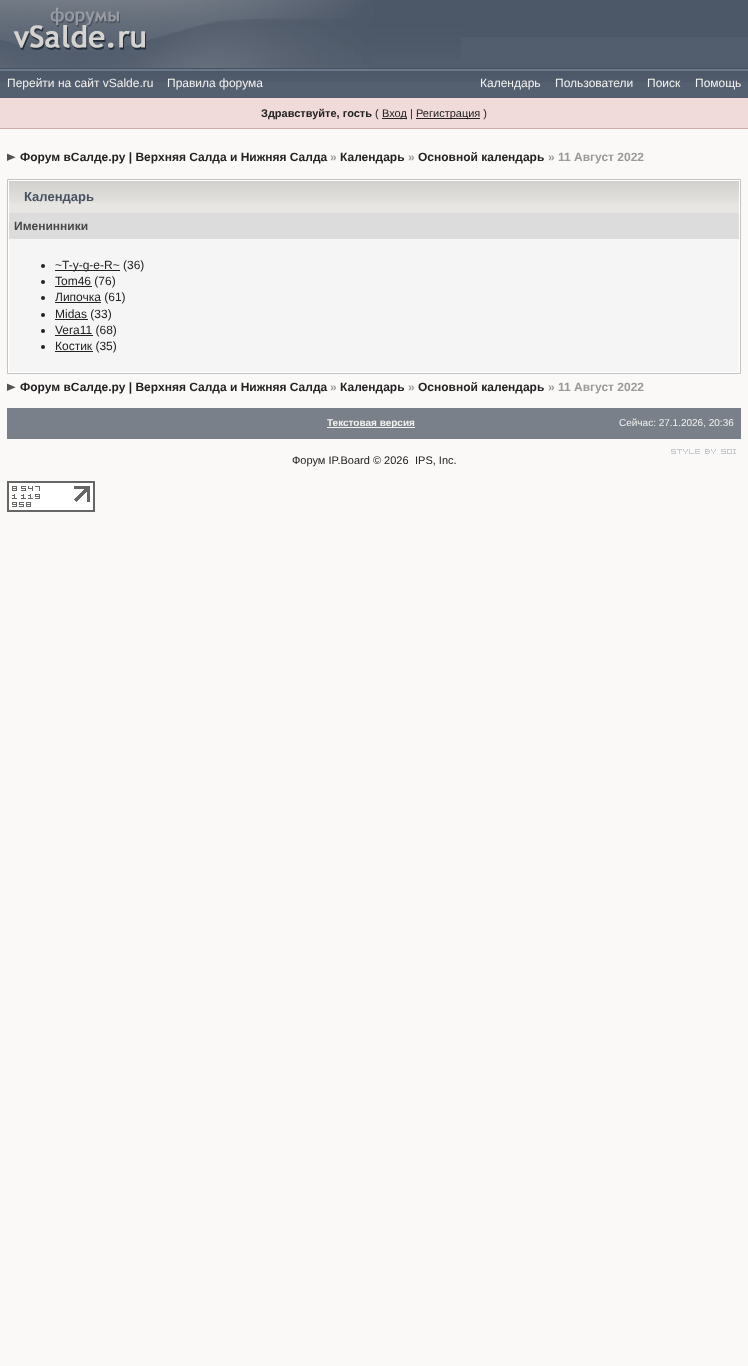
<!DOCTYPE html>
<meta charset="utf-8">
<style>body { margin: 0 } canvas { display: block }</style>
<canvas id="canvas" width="748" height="1366"></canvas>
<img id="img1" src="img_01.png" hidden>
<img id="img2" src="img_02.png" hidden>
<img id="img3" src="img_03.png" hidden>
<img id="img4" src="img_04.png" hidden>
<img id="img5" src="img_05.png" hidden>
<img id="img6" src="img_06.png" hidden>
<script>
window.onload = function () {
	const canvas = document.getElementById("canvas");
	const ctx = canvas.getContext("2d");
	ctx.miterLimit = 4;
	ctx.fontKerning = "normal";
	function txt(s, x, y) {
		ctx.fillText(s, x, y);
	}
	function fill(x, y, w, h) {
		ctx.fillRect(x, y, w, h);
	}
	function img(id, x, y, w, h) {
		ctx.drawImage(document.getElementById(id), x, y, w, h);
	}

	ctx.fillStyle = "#FBF9F8";
	fill(0, 0, 748, 1366);
	ctx.fillStyle = "#525D6D";
	fill(461, 37, 287, 31);
	ctx.fillStyle = "#4C5767";
	fill(461, 0, 287, 37);
	img("img1", 0, 0, 461, 68);
	ctx.fillStyle = "#545F6F";
	fill(0, 82, 748, 16);
	img("img2", 0, 68, 748, 14);
	ctx.fillStyle = "#F1DADA";
	fill(0, 98, 748, 30);
	ctx.fillStyle = "#D1A9A9";
	fill(0, 128, 748, 1);
	ctx.fillStyle = "#222222";
	fill(382, 118, 25, 1);
	fill(416, 118, 64, 1);
	img("img3", 7, 153, 9, 8);
	ctx.fillStyle = "#FFFFFF";
	ctx.beginPath();
	ctx.rect(7.5, 179.5, 733, 194);
	ctx.fill();
	ctx.strokeStyle = "#C4C4C4";
	ctx.stroke();
	ctx.fillStyle = "#E7E6E3";
	fill(9, 203, 730, 10);
	img("img4", 9, 181, 730, 22);
	ctx.fillStyle = "#DCDCDC";
	fill(9, 213, 730, 26);
	ctx.fillStyle = "#F5F5F5";
	fill(9, 239, 730, 133);
	ctx.fillStyle = "#222222";
	ctx.beginPath();
	ctx.arc(43, 266, 2, 0, Math.PI * 2);
	ctx.fill();
	fill(55, 270, 65, 1);
	ctx.beginPath();
	ctx.arc(43, 282, 2, 0, Math.PI * 2);
	ctx.fill();
	fill(55, 286, 37, 1);
	ctx.beginPath();
	ctx.arc(43, 298, 2, 0, Math.PI * 2);
	ctx.fill();
	fill(55, 302, 46, 1);
	ctx.beginPath();
	ctx.arc(43, 315, 2, 0, Math.PI * 2);
	ctx.fill();
	fill(55, 319, 33, 1);
	ctx.beginPath();
	ctx.arc(43, 331, 2, 0, Math.PI * 2);
	ctx.fill();
	fill(55, 335, 38, 1);
	ctx.beginPath();
	ctx.arc(43, 347, 2, 0, Math.PI * 2);
	ctx.fill();
	fill(55, 351, 38, 1);
	img("img3", 7, 383, 9, 8);
	ctx.fillStyle = "#79808A";
	fill(7, 408, 734, 31);
	ctx.fillStyle = "#F3F2EF";
	fill(327, 427, 88, 1);
	img("img5", 671, 449, 65, 5);
	img("img6", 7, 481, 88, 31);
	ctx.font = "12px Liberation Sans";
	txt("Перейти на сайт vSalde.ru", 7, 87);
	txt("Правила форума", 167, 87);
	txt("Календарь", 480, 87);
	txt("Пользователи", 555, 87);
	txt("Поиск", 647, 87);
	txt("Помощь", 695, 87);
	ctx.font = "bold 11px Liberation Sans";
	ctx.fillStyle = "#222222";
	txt("Здравствуйте, гость", 261, 117);
	ctx.font = "11px Liberation Sans";
	txt("(", 375, 117);
	txt("Вход |", 382, 117);
	txt("Регистрация )", 416, 117);
	ctx.font = "bold 12px Liberation Sans";
	txt("Форум вСалде.ру | Верхняя Салда и Нижняя Салда", 20, 161);
	ctx.fillStyle = "#999999";
	txt("»", 330, 161);
	ctx.fillStyle = "#222222";
	txt("Календарь", 340, 161);
	ctx.fillStyle = "#999999";
	txt("»", 408, 161);
	ctx.fillStyle = "#222222";
	txt("Основной календарь", 418, 161);
	ctx.fillStyle = "#999999";
	txt("» 11 Август 2022", 548, 161);
	ctx.font = "bold 13px Liberation Sans";
	ctx.fillStyle = "#475262";
	txt("Календарь", 24, 201);
	ctx.font = "bold 12px Liberation Sans";
	ctx.fillStyle = "#474747";
	txt("Именинники", 14, 230);
	ctx.font = "12px Liberation Sans";
	ctx.fillStyle = "#222222";
	txt("~T-y-g-e-R~ (36)", 55, 269);
	txt("Tom46 (76)", 55, 285);
	txt("Липочка (61)", 55, 301);
	txt("Midas (33)", 55, 318);
	txt("Vera11 (68)", 55, 334);
	txt("Костик (35)", 55, 350);
	ctx.font = "bold 12px Liberation Sans";
	txt("Форум вСалде.ру | Верхняя Салда и Нижняя Салда", 20, 391);
	ctx.fillStyle = "#999999";
	txt("»", 330, 391);
	ctx.fillStyle = "#222222";
	txt("Календарь", 340, 391);
	ctx.fillStyle = "#999999";
	txt("»", 408, 391);
	ctx.fillStyle = "#222222";
	txt("Основной календарь", 418, 391);
	ctx.fillStyle = "#999999";
	txt("» 11 Август 2022", 548, 391);
	ctx.font = "bold 10px Liberation Sans";
	ctx.fillStyle = "#F3F2EF";
	txt("Текстовая версия", 327, 426);
	ctx.font = "10px Liberation Sans";
	txt("Сейчас: 27.1.2026, 20:36", 619, 426);
	ctx.font = "11px Liberation Sans";
	ctx.fillStyle = "#222222";
	txt("Форум IP.Board © 2026", 292, 464);
	txt("IPS, Inc.", 415, 464);
};
</script>
